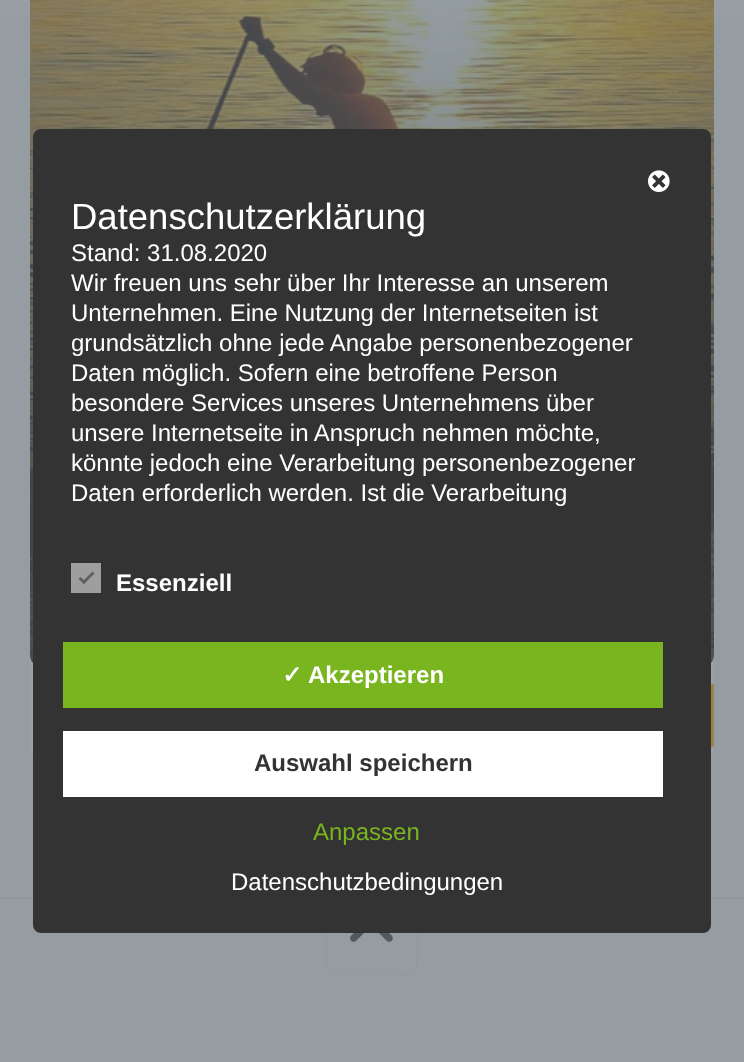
<!DOCTYPE html>
<meta charset="utf-8">
<style>body { margin: 0 } canvas { display: block }</style>
<canvas id="canvas" width="744" height="1062"></canvas>
<img id="img1" src="img_01.png" hidden>
<img id="img2" src="img_02.png" hidden>
<img id="img3" src="img_03.png" hidden>
<img id="img4" src="img_04.png" hidden>
<script>
window.onload = function () {
	const canvas = document.getElementById("canvas");
	const ctx = canvas.getContext("2d");
	ctx.miterLimit = 4;
	ctx.fontKerning = "normal";
	function txt(s, x, y) {
		ctx.fillText(s, x, y);
	}
	function fill(x, y, w, h) {
		ctx.fillRect(x, y, w, h);
	}
	function round(x, y, w, h, r) {
		ctx.beginPath();
		ctx.roundRect(x, y, w, h, r);
		ctx.fill();
	}
	function img(id, x, y, w, h) {
		ctx.drawImage(document.getElementById(id), x, y, w, h);
	}
	let gradient;

	ctx.fillStyle = "#959DA2";
	fill(0, 0, 744, 1062);
	ctx.fillStyle = "rgba(63, 70, 75, 0.06)";
	ctx.beginPath();
	ctx.moveTo(30, 747);
	ctx.lineTo(30, 749);
	ctx.bezierCurveTo(30, 757, 37, 764, 45, 764);
	ctx.lineTo(699, 764);
	ctx.bezierCurveTo(707, 764, 714, 757, 714, 749);
	ctx.lineTo(714, 747);
	ctx.bezierCurveTo(714, 755, 707, 762, 699, 762);
	ctx.lineTo(45, 762);
	ctx.bezierCurveTo(37, 762, 30, 755, 30, 747);
	ctx.closePath();
	ctx.fill();
	gradient = ctx.createLinearGradient(372, -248, 372, 203);
	gradient.addColorStop(0, "#9BA2A7");
	gradient.addColorStop(1, "#959DA2");
	ctx.fillStyle = gradient;
	fill(0, 0, 744, 15);
	ctx.fillStyle = "#9BA2A7";
	round(30, -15, 684, 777, 15);
	img("img1", 30, 0, 684, 663);
	img("img2", 30, 0, 684, 663);
	ctx.fillStyle = "#9B834B";
	fill(711, 684, 3, 63);
	ctx.fillStyle = "#91999D";
	fill(0, 897, 744, 2);
	ctx.beginPath();
	ctx.moveTo(326, 898);
	ctx.lineTo(418, 898);
	ctx.lineTo(418, 960);
	ctx.bezierCurveTo(418, 968, 412, 975, 404, 975);
	ctx.lineTo(340, 975);
	ctx.bezierCurveTo(332, 975, 326, 968, 326, 960);
	ctx.closePath();
	ctx.moveTo(327, 898);
	ctx.lineTo(417, 898);
	ctx.lineTo(417, 960);
	ctx.bezierCurveTo(417, 967, 411, 974, 404, 974);
	ctx.lineTo(340, 974);
	ctx.bezierCurveTo(333, 974, 327, 967, 327, 960);
	ctx.closePath();
	ctx.fill("evenodd");
	img("img3", 350, 933, 43, 9);
	ctx.fillStyle = "#333333";
	round(33, 129, 678, 804, 8);
	img("img4", 648, 170, 22, 22);
	ctx.fillStyle = "#9E9E9E";
	fill(71, 563, 30, 30);
	ctx.fillStyle = "#5E5E5E";
	ctx.beginPath();
	ctx.moveTo(92.5, 571.5);
	ctx.lineTo(94.5, 573.5);
	ctx.lineTo(84, 584);
	ctx.lineTo(82, 582);
	ctx.closePath();
	ctx.fill();
	ctx.beginPath();
	ctx.moveTo(80.5, 577);
	ctx.lineTo(86, 582);
	ctx.lineTo(84, 584);
	ctx.lineTo(78.5, 579);
	ctx.closePath();
	ctx.fill();
	ctx.fillStyle = "#79B51F";
	fill(63, 642, 600, 66);
	ctx.fillStyle = "#FFFFFF";
	fill(63, 731, 600, 66);
	ctx.font = "36.5px Liberation Sans";
	txt("Datenschutzerklärung", 71, 229);
	ctx.font = "24px Liberation Sans";
	txt("Stand: 31.08.2020", 71, 261);
	txt("Wir freuen uns sehr über Ihr Interesse an unserem", 71, 291);
	txt("Unternehmen. Eine Nutzung der Internetseiten ist", 71, 321);
	txt("grundsätzlich ohne jede Angabe personenbezogener", 71, 351);
	txt("Daten möglich. Sofern eine betroffene Person", 71, 381);
	txt("besondere Services unseres Unternehmens über", 71, 411);
	txt("unsere Internetseite in Anspruch nehmen möchte,", 71, 441);
	txt("könnte jedoch eine Verarbeitung personenbezogener", 71, 471);
	txt("Daten erforderlich werden. Ist die Verarbeitung", 71, 501);
	ctx.font = "bold 24px Liberation Sans";
	txt("Essenziell", 116, 591);
	ctx.font = "bold 24px DejaVu Sans";
	txt("✓", 282, 683);
	ctx.font = "bold 24px Liberation Sans";
	txt("Akzeptieren", 308, 683);
	ctx.fillStyle = "#333333";
	txt("Auswahl speichern", 254, 771);
	ctx.font = "24px Liberation Sans";
	ctx.fillStyle = "#79B51F";
	txt("Anpassen", 313, 840);
	ctx.fillStyle = "#FFFFFF";
	txt("Datenschutzbedingungen", 231, 890);
};
</script>
